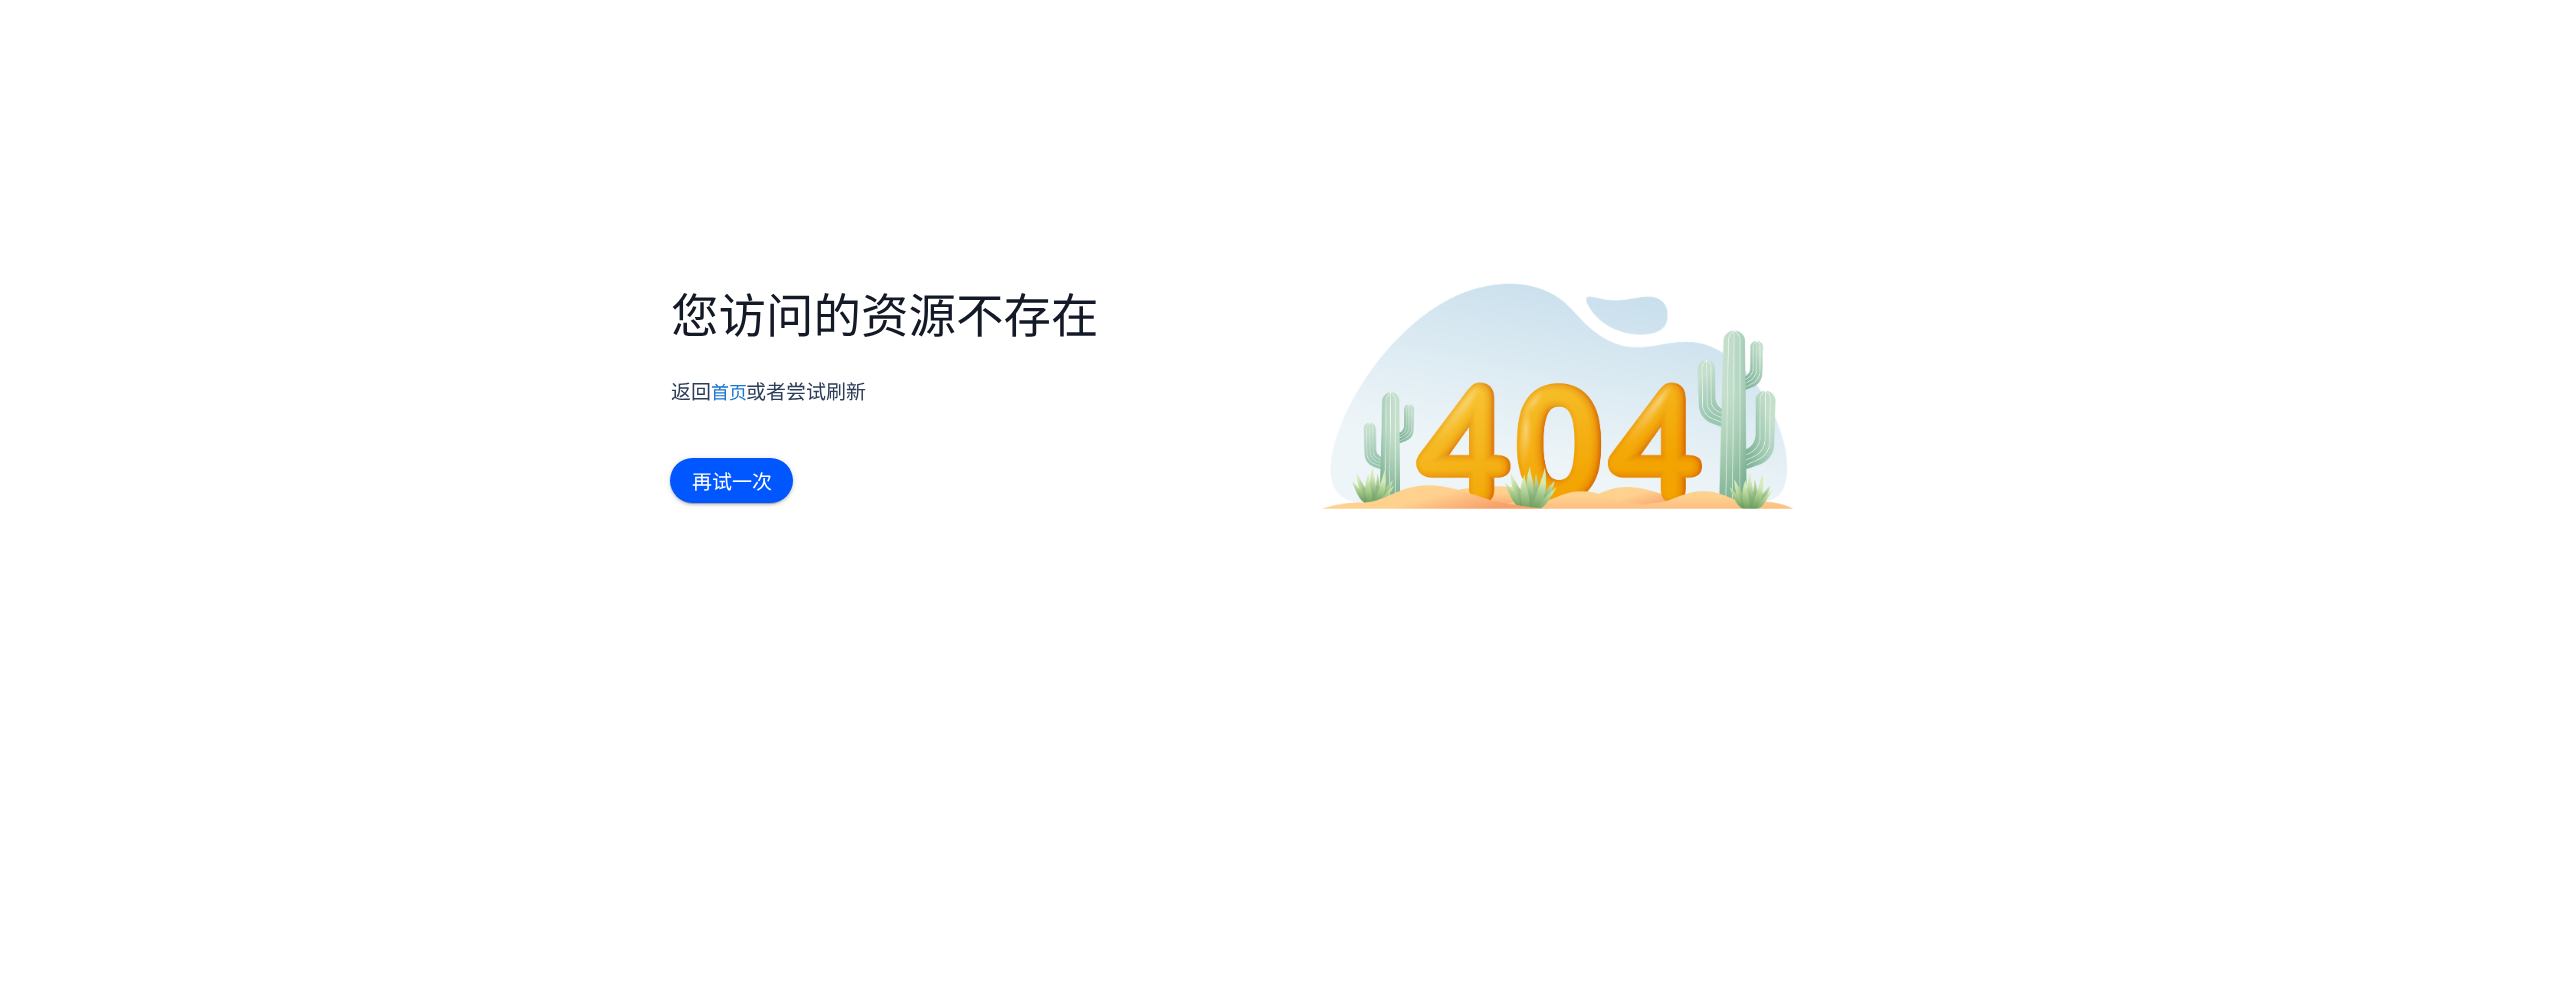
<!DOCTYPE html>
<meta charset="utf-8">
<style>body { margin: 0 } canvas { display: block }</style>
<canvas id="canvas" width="2573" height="1006"></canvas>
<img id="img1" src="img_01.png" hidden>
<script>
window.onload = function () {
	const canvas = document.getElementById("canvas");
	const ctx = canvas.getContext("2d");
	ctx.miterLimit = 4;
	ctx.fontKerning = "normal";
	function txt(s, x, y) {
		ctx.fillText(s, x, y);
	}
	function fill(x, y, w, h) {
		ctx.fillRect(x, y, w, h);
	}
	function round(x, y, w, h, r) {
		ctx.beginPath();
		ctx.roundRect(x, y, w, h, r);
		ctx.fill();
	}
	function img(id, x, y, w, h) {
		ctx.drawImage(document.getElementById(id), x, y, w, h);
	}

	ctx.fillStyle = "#FFFFFF";
	fill(0, 0, 2573, 1006);
	ctx.fillStyle = "rgba(0, 0, 0, 0.12)";
	ctx.filter = "blur(3px)";
	ctx.beginPath();
	ctx.roundRect(670, 459, 123, 45, 22.5);
	ctx.fill();
	ctx.filter = "none";
	ctx.fillStyle = "rgba(0, 0, 0, 0.14)";
	ctx.filter = "blur(1px)";
	ctx.beginPath();
	ctx.roundRect(670, 460, 123, 45, 22.5);
	ctx.fill();
	ctx.filter = "none";
	ctx.fillStyle = "rgba(0, 0, 0, 0.2)";
	ctx.filter = "blur(0.5px)";
	ctx.beginPath();
	ctx.roundRect(673, 464, 117, 40, 20);
	ctx.fill();
	ctx.filter = "none";
	ctx.fillStyle = "#0057FF";
	round(670, 458, 123, 45, 22.5);
	img("img1", 1322, 283, 472, 226);
	ctx.font = "47.5px Noto Sans CJK SC";
	ctx.fillStyle = "#131926";
	txt("您访问的资源不存在", 671, 333);
	ctx.font = "20px Noto Sans CJK SC";
	ctx.fillStyle = "#2D3C59";
	txt("返回", 671, 399);
	ctx.font = "18px Noto Sans CJK SC";
	ctx.fillStyle = "#1976D2";
	txt("首页", 711, 399);
	ctx.font = "20px Noto Sans CJK SC";
	ctx.fillStyle = "#2D3C59";
	txt("或者尝试刷新", 746, 399);
	ctx.fillStyle = "#FFFFFF";
	txt("再试一次", 692, 489);
};
</script>
